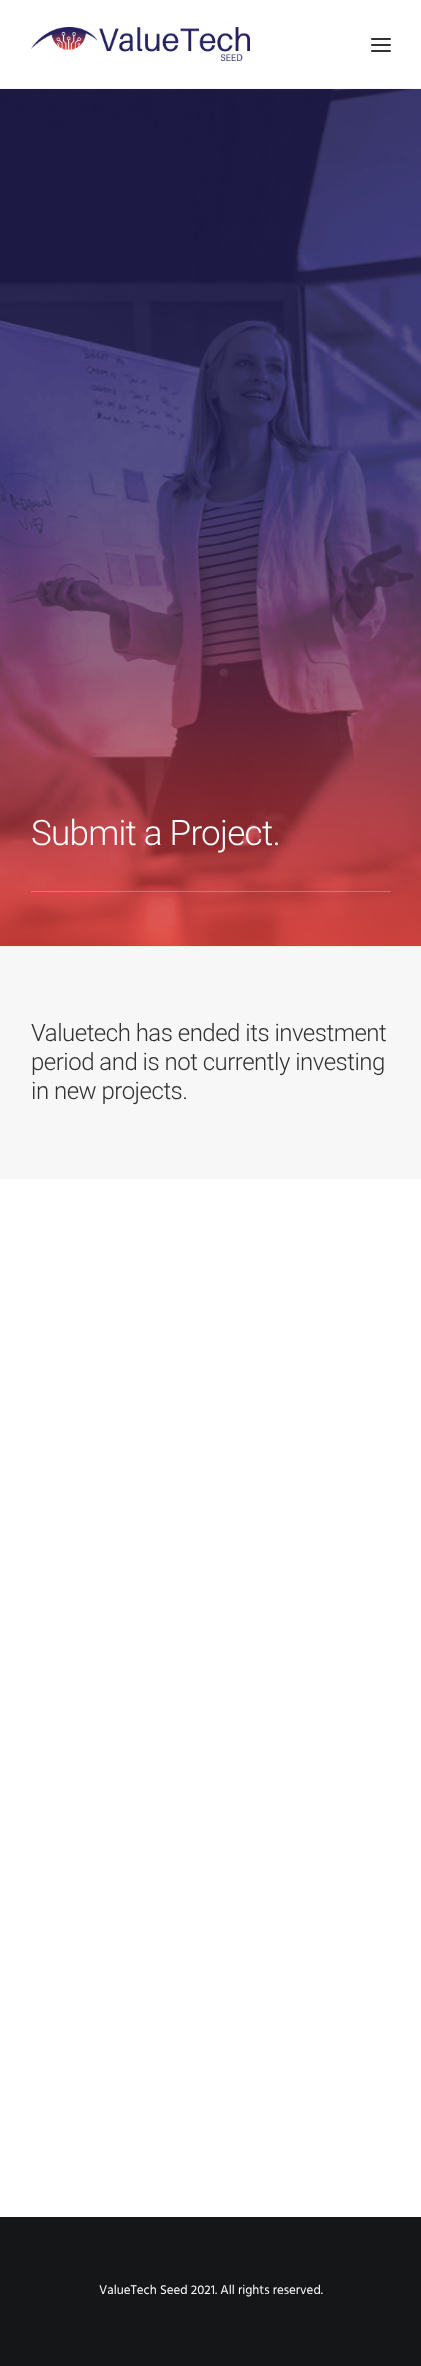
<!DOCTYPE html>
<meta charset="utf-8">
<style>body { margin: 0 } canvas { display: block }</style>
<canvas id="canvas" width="421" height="2366"></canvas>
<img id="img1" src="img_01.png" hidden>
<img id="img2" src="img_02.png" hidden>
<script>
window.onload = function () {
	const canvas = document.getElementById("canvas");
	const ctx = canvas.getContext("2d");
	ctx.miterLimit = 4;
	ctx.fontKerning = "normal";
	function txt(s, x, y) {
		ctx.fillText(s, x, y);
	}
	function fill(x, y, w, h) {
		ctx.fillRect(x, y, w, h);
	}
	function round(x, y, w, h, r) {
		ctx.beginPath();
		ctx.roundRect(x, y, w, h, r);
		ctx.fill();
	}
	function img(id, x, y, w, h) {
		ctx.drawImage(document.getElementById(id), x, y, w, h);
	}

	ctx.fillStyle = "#141618";
	fill(0, 0, 421, 2366);
	ctx.fillStyle = "#FFFFFF";
	fill(0, 0, 421, 88);
	ctx.fillStyle = "#F5F5F5";
	fill(0, 88, 421, 1);
	img("img1", 31, 27, 219, 34);
	ctx.fillStyle = "#303133";
	round(371, 44, 20, 2, 1);
	round(371, 38, 20, 2, 1);
	round(371, 50, 20, 2, 1);
	img("img2", 0, 89, 421, 857);
	ctx.fillStyle = "rgba(255, 255, 255, 0.25)";
	fill(31, 891, 360, 1);
	ctx.fillStyle = "#FFFFFF";
	fill(0, 1179, 421, 1038);
	ctx.fillStyle = "#F7F7F7";
	fill(0, 947, 421, 232);
	ctx.fillStyle = "#EAEAEA";
	fill(0, 946, 421, 1);
	ctx.letterSpacing = "-0.75px";
	ctx.font = "300 35px Roboto";
	ctx.fillStyle = "#FFFFFF";
	txt("Submit a Project.", 31, 845);
	ctx.letterSpacing = "-0.5px";
	ctx.font = "300 24px Roboto";
	ctx.fillStyle = "#303133";
	txt("Valuetech has ended its investment", 31, 1041);
	txt("period and is not currently investing", 31, 1070);
	txt("in new projects.", 31, 1099);
	ctx.letterSpacing = "0px";
	ctx.font = "13px Hind";
	ctx.fillStyle = "#FFFFFF";
	txt("ValueTech Seed 2021. All rights reserved.", 99, 2294);
};
</script>
